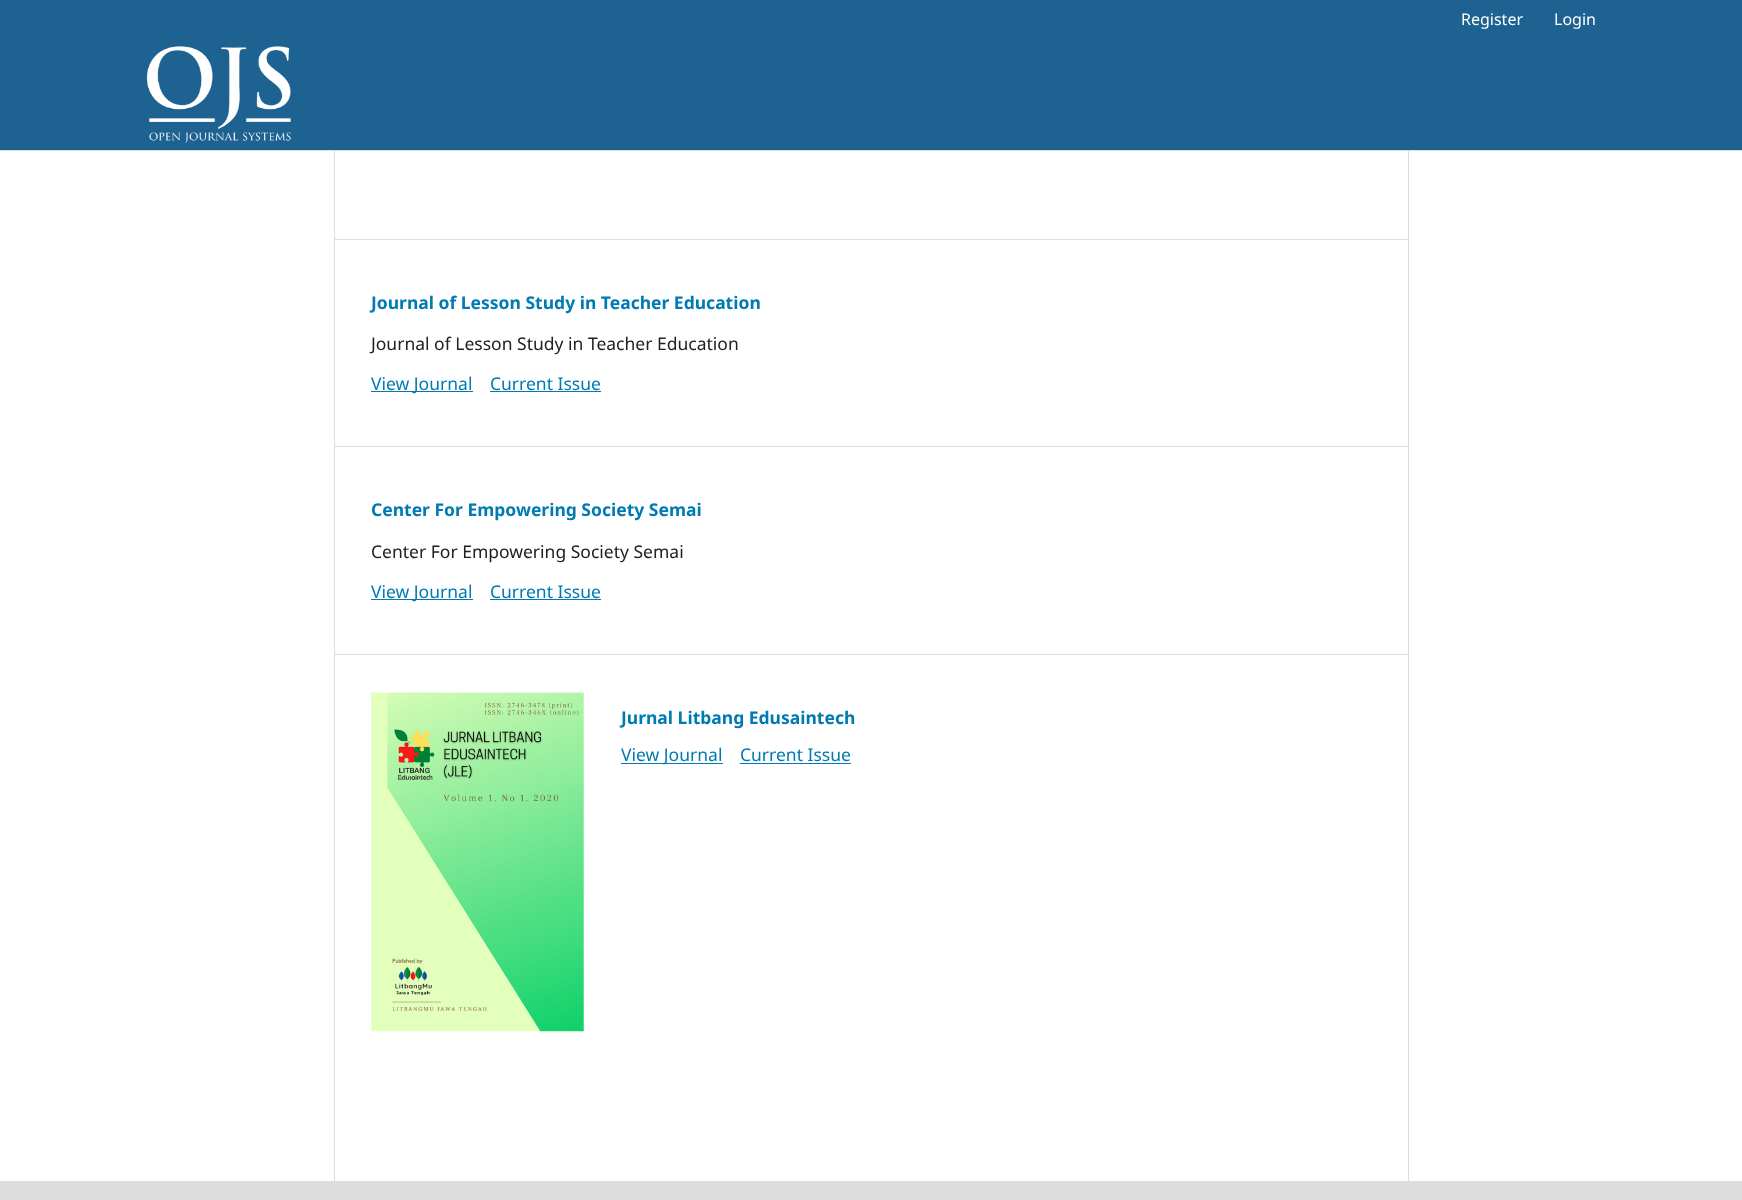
<!DOCTYPE html>
<meta charset="utf-8">
<style>body { margin: 0 } canvas { display: block }</style>
<canvas id="canvas" width="1742" height="1200"></canvas>
<img id="img1" src="img_01.png" hidden>
<img id="img2" src="img_02.png" hidden>
<script>
window.onload = function () {
	const canvas = document.getElementById("canvas");
	const ctx = canvas.getContext("2d");
	ctx.miterLimit = 4;
	ctx.fontKerning = "normal";
	function txt(s, x, y) {
		ctx.fillText(s, x, y);
	}
	function fill(x, y, w, h) {
		ctx.fillRect(x, y, w, h);
	}
	function img(id, x, y, w, h) {
		ctx.drawImage(document.getElementById(id), x, y, w, h);
	}

	ctx.fillStyle = "#FFFFFF";
	fill(0, 0, 1742, 1200);
	ctx.fillStyle = "#1E6292";
	fill(0, 0, 1742, 150);
	ctx.fillStyle = "#DDDDDD";
	fill(0, 150, 1742, 1);
	img("img1", 146, 46, 145, 97);
	fill(334, 239, 1075, 1);
	fill(334, 446, 1075, 1);
	fill(334, 654, 1075, 1);
	fill(334, 151, 1, 1030);
	ctx.fillStyle = "#007AB2";
	fill(371, 391, 102, 1);
	fill(490, 391, 111, 1);
	fill(371, 599, 102, 1);
	fill(490, 599, 111, 1);
	img("img2", 371, 692, 213, 340);
	fill(621, 763, 102, 1);
	fill(740, 763, 111, 1);
	ctx.fillStyle = "#DDDDDD";
	fill(1408, 151, 1, 1030);
	fill(0, 1181, 1742, 19);
	ctx.font = "16px Noto Sans";
	ctx.fillStyle = "#FFFFFF";
	txt("Register", 1461, 25);
	txt("Login", 1554, 25);
	ctx.font = "bold 17.5px Noto Sans";
	ctx.fillStyle = "#007AB2";
	txt("Journal of Lesson Study in Teacher Education", 371, 309);
	ctx.font = "17.5px Noto Sans";
	ctx.fillStyle = "#212121";
	txt("Journal of Lesson Study in Teacher Education", 371, 350);
	ctx.fillStyle = "#007AB2";
	txt("View Journal", 371, 390);
	txt("Current Issue", 490, 390);
	ctx.font = "bold 17.5px Noto Sans";
	txt("Center For Empowering Society Semai", 371, 516);
	ctx.font = "17.5px Noto Sans";
	ctx.fillStyle = "#212121";
	txt("Center For Empowering Society Semai", 371, 558);
	ctx.fillStyle = "#007AB2";
	txt("View Journal", 371, 598);
	txt("Current Issue", 490, 598);
	ctx.font = "bold 17.5px Noto Sans";
	txt("Jurnal Litbang Edusaintech", 621, 724);
	ctx.font = "17.5px Noto Sans";
	txt("View Journal", 621, 761);
	txt("Current Issue", 740, 761);
};
</script>
